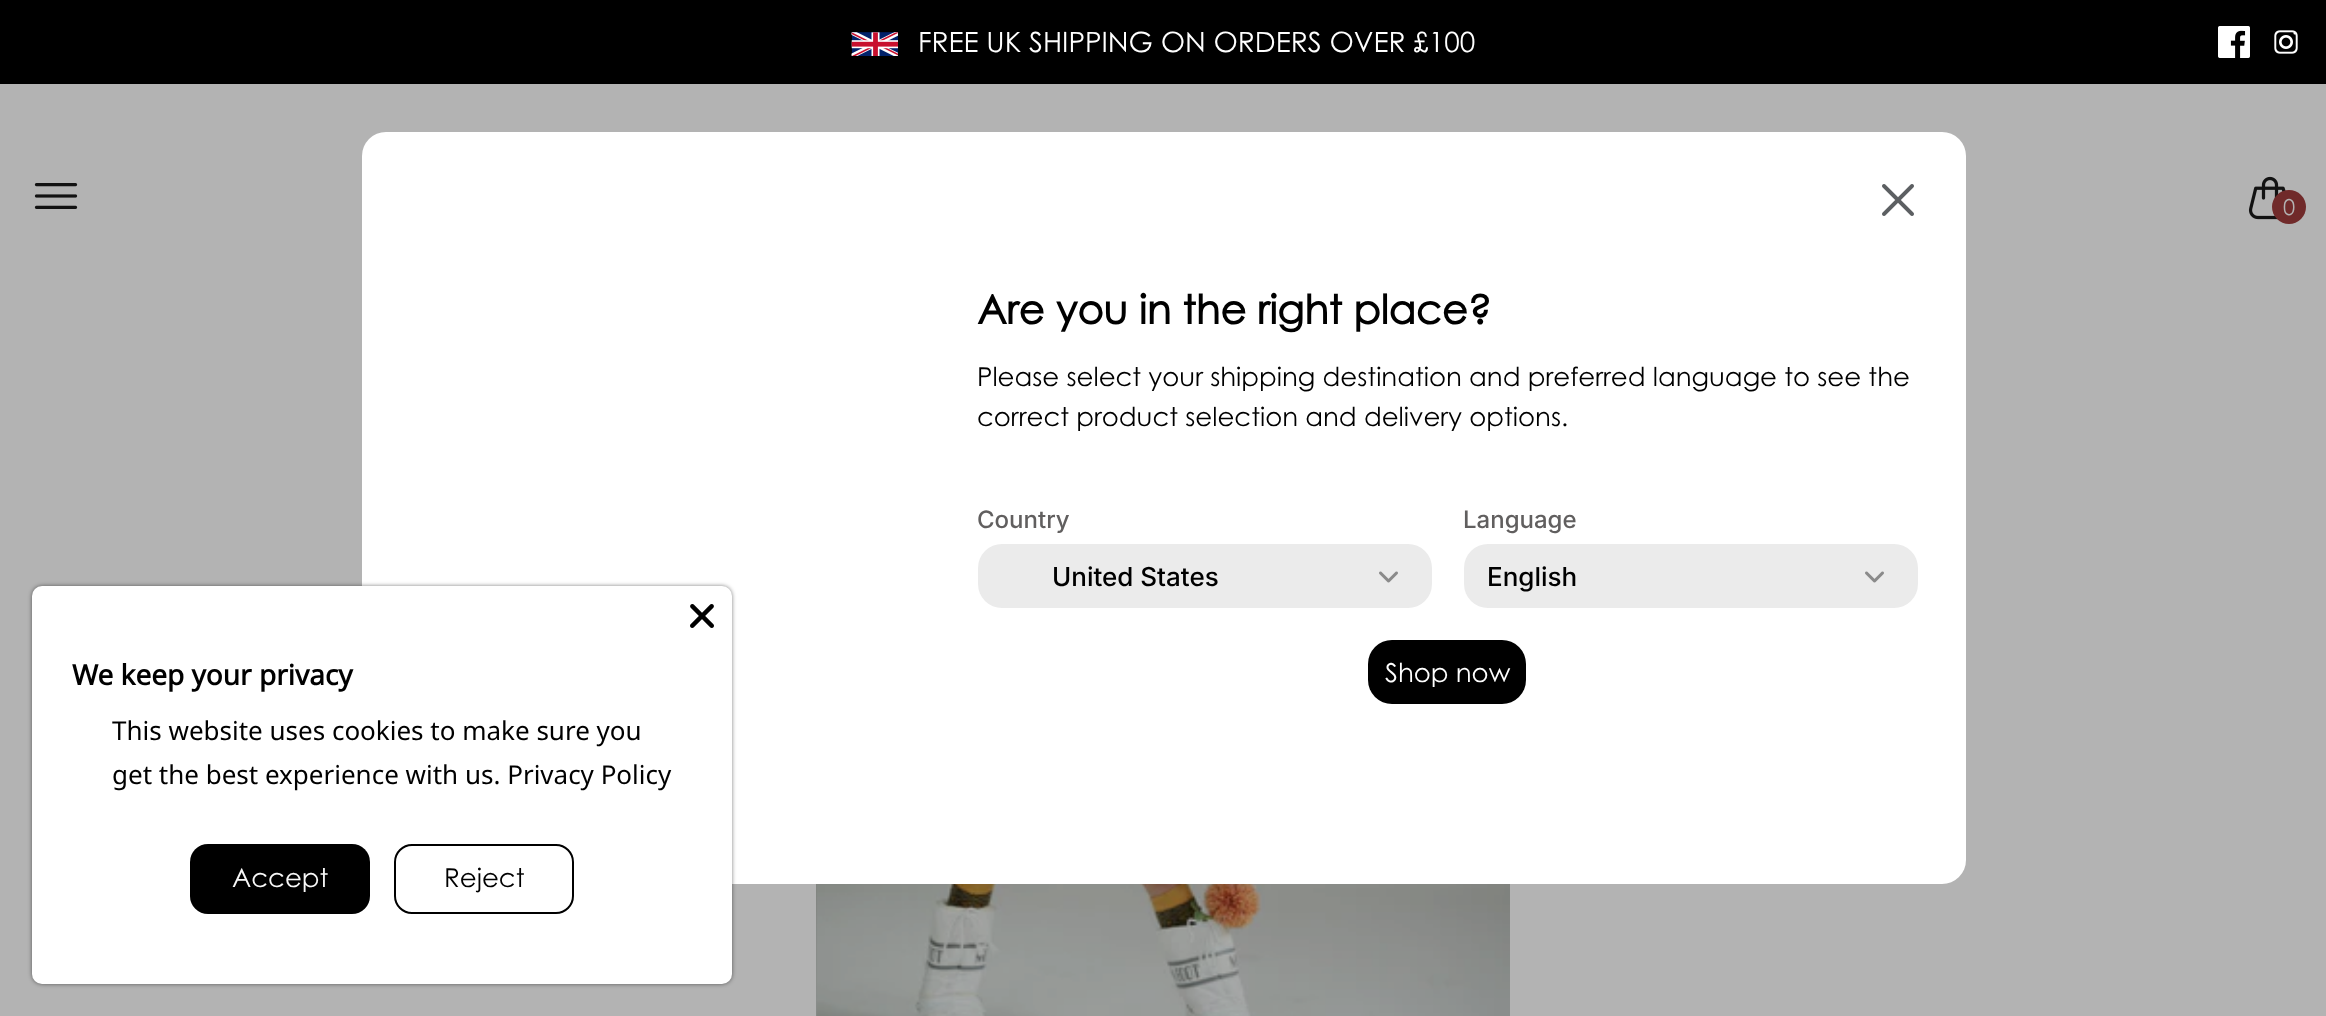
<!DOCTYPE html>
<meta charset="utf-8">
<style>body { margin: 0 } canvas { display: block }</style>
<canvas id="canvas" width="2326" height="1016"></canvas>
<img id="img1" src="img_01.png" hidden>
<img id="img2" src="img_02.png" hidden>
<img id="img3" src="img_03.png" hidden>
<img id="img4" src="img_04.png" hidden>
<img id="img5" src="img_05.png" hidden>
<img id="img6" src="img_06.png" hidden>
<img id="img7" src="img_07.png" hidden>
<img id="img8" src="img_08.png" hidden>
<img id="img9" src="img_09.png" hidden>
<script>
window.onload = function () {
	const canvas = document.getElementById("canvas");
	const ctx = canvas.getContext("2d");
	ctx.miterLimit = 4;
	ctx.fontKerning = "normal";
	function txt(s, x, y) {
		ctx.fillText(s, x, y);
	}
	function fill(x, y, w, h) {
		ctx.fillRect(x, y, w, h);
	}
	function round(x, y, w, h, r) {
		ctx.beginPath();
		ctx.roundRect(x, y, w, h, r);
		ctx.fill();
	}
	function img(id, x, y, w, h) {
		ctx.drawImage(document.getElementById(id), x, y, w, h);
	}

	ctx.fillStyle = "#B3B3B3";
	fill(0, 0, 2326, 1016);
	ctx.fillStyle = "#000000";
	fill(0, 0, 2326, 84);
	img("img1", 851, 32, 47, 24);
	img("img2", 2218, 26, 32, 32);
	img("img3", 2274, 30, 24, 24);
	img("img4", 34, 183, 44, 26);
	img("img5", 2248, 176, 38, 44);
	ctx.fillStyle = "#702A2A";
	ctx.beginPath();
	ctx.arc(2289, 207, 17, 0, Math.PI * 2);
	ctx.fill();
	img("img6", 816, 884, 694, 132);
	ctx.fillStyle = "#FFFFFF";
	round(362, 132, 1604, 752, 24);
	img("img7", 1882, 184, 32, 32);
	ctx.fillStyle = "#EBEBEB";
	round(978, 544, 454, 64, 24);
	img("img8", 1379, 571, 19, 12);
	round(1464, 544, 454, 64, 24);
	img("img8", 1865, 571, 19, 12);
	ctx.fillStyle = "#000000";
	round(1368, 640, 158, 64, 24);
	ctx.fillStyle = "rgba(0, 0, 0, 0.5)";
	ctx.filter = "blur(2px)";
	ctx.beginPath();
	ctx.roundRect(32, 586, 700, 398, 10);
	ctx.fill();
	ctx.filter = "none";
	ctx.fillStyle = "#FFFFFF";
	round(32, 586, 700, 398, 10);
	img("img9", 690, 604, 24, 24);
	ctx.fillStyle = "#000000";
	round(190, 844, 180, 70, 18);
	ctx.beginPath();
	ctx.roundRect(395, 845, 178, 68, 17);
	ctx.strokeStyle = "#000000";
	ctx.lineWidth = 2;
	ctx.stroke();
	ctx.font = "28px Century Gothic";
	ctx.fillStyle = "#FFFFFF";
	txt("FREE UK SHIPPING ON ORDERS OVER £100", 918, 52);
	ctx.font = "22px Century Gothic";
	ctx.fillStyle = "#B3B3B3";
	txt("0", 2283, 215);
	ctx.font = "bold 40px Century Gothic";
	ctx.fillStyle = "#000000";
	txt("Are you in the right place?", 977, 324);
	ctx.font = "26px Century Gothic";
	txt("Please select your shipping destination and preferred language to see the", 977, 386);
	txt("correct product selection and delivery options.", 977, 426);
	ctx.font = "500 24px Inter";
	ctx.fillStyle = "#615F5F";
	txt("Country", 977, 528);
	ctx.font = "500 26px Inter";
	ctx.fillStyle = "#000000";
	txt("United States", 1052, 586);
	ctx.font = "500 24px Inter";
	ctx.fillStyle = "#615F5F";
	txt("Language", 1463, 528);
	ctx.font = "500 26px Inter";
	ctx.fillStyle = "#000000";
	txt("English", 1487, 586);
	ctx.font = "26px Century Gothic";
	ctx.fillStyle = "#FFFFFF";
	txt("Shop now", 1385, 682);
	ctx.font = "bold 28px Noto Sans";
	ctx.fillStyle = "#000000";
	txt("We keep your privacy", 72, 685);
	ctx.font = "26px Noto Sans";
	txt("This website uses cookies to make sure you", 112, 740);
	txt("get the best experience with us. Privacy Policy", 112, 784);
	ctx.font = "26px Century Gothic";
	ctx.fillStyle = "#F8F8F8";
	txt("Accept", 232, 887);
	ctx.fillStyle = "#000000";
	txt("Reject", 444, 887);
};
</script>
